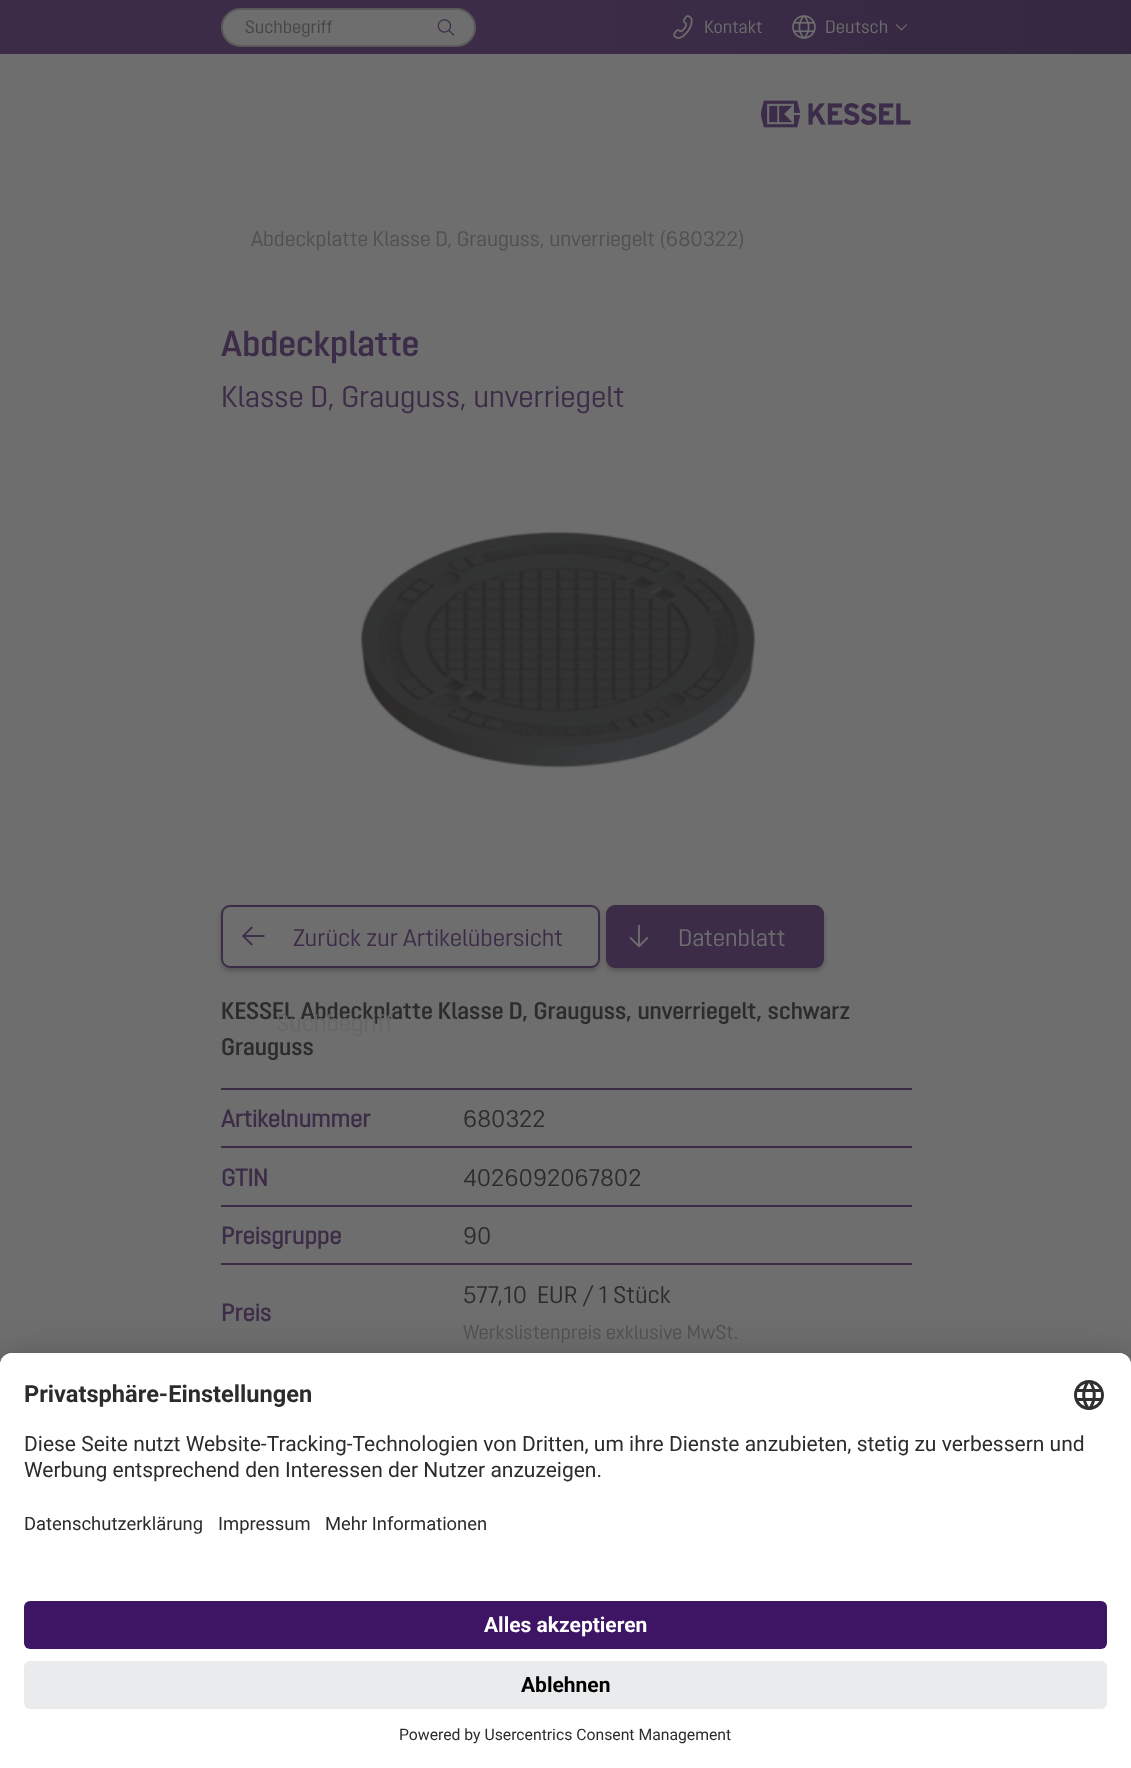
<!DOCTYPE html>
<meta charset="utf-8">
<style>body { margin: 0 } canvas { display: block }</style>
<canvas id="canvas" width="1131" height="1768"></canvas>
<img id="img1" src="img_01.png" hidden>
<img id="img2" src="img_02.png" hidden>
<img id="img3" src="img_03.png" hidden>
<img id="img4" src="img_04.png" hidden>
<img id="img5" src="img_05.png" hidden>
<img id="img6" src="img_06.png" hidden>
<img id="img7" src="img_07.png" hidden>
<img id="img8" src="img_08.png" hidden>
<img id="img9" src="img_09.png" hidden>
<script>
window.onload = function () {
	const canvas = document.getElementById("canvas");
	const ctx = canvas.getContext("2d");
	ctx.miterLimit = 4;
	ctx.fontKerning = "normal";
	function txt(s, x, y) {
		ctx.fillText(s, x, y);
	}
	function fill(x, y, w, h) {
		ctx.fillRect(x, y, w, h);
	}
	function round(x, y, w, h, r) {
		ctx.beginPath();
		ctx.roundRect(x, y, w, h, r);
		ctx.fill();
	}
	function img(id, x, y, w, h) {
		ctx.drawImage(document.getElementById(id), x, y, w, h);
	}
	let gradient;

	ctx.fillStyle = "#6E6E6E";
	fill(0, 0, 1131, 1768);
	gradient = ctx.createLinearGradient(0, 27, 1131, 27);
	gradient.addColorStop(0.5, "#3C2C48");
	gradient.addColorStop(1, "#342840");
	ctx.fillStyle = gradient;
	fill(0, 0, 1131, 54);
	ctx.fillStyle = "#6E6E6E";
	ctx.beginPath();
	ctx.roundRect(222, 9, 253, 37, 18.5);
	ctx.fill();
	ctx.strokeStyle = "#5A5A5A";
	ctx.lineWidth = 2;
	ctx.stroke();
	img("img1", 437, 19, 18, 17);
	img("img2", 673, 15, 20, 24);
	img("img3", 792, 15, 24, 24);
	img("img4", 895, 24, 13, 7);
	img("img5", 761, 100, 150, 28);
	img("img6", 360, 531, 396, 237);
	ctx.fillStyle = "rgba(34, 34, 34, 0.3)";
	ctx.filter = "blur(2px)";
	ctx.beginPath();
	ctx.roundRect(221, 908, 379, 63, 9);
	ctx.fill();
	ctx.filter = "none";
	ctx.fillStyle = "#6E6E6E";
	ctx.beginPath();
	ctx.roundRect(222, 906, 377, 61, 8);
	ctx.fill();
	ctx.strokeStyle = "#3C2C48";
	ctx.stroke();
	img("img7", 242, 926, 23, 20);
	ctx.fillStyle = "rgba(34, 34, 34, 0.3)";
	ctx.filter = "blur(2px)";
	ctx.beginPath();
	ctx.roundRect(606, 908, 218, 63, 9);
	ctx.fill();
	ctx.filter = "none";
	ctx.fillStyle = "#3C2C48";
	ctx.beginPath();
	ctx.roundRect(607, 906, 216, 61, 8);
	ctx.fill();
	ctx.stroke();
	img("img8", 629, 924, 20, 24);
	fill(221, 1088, 691, 2);
	fill(221, 1146, 691, 2);
	fill(221, 1205, 691, 2);
	fill(221, 1263, 691, 2);
	ctx.fillStyle = "rgba(0, 0, 0, 0.3)";
	ctx.filter = "blur(21px)";
	ctx.beginPath();
	ctx.roundRect(0, 1383, 1131, 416, 12);
	ctx.fill();
	ctx.filter = "none";
	ctx.fillStyle = "rgba(0, 0, 0, 0.22)";
	ctx.filter = "blur(19.5px)";
	ctx.beginPath();
	ctx.roundRect(0, 1361, 1131, 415, 12);
	ctx.fill();
	ctx.filter = "none";
	ctx.fillStyle = "#FFFFFF";
	ctx.beginPath();
	ctx.moveTo(12, 1353);
	ctx.lineTo(1119, 1353);
	ctx.bezierCurveTo(1125.5, 1353, 1131, 1358.5, 1131, 1365);
	ctx.lineTo(1131, 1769);
	ctx.lineTo(0, 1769);
	ctx.lineTo(0, 1365);
	ctx.bezierCurveTo(0, 1358.5, 5.5, 1353, 12, 1353);
	ctx.closePath();
	ctx.fill();
	ctx.beginPath();
	ctx.roundRect(0, 1353, 1131, 230, [12, 12, 0, 0]);
	ctx.fill();
	img("img9", 1074, 1380, 30, 30);
	ctx.fillStyle = "#3D1564";
	round(24, 1601, 1083, 48, 6);
	ctx.fillStyle = "#EAEBEC";
	round(24, 1661, 1083, 48, 6);
	ctx.font = "18px 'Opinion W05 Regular'";
	ctx.fillStyle = "#454545";
	txt("Suchbegriff", 245, 33);
	ctx.fillStyle = "#6E6E6E";
	txt("Kontakt", 704, 33);
	txt("Deutsch", 825, 33);
	ctx.font = "21px 'Opinion W05 Regular'";
	ctx.fillStyle = "#505050";
	txt("Abdeckplatte Klasse D, Grauguss, unverriegelt (680322)", 251, 246);
	ctx.font = "600 36px 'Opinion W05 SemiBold'";
	ctx.fillStyle = "#3C2C48";
	txt("Abdeckplatte", 221, 356);
	ctx.font = "30px 'Opinion W05 Regular'";
	txt("Klasse D, Grauguss, unverriegelt", 221, 407);
	ctx.font = "24px 'Opinion W05 Regular'";
	txt("Zurück zur Artikelübersicht", 293, 946);
	ctx.fillStyle = "#6E6E6E";
	txt("Datenblatt", 678, 946);
	ctx.font = "600 24px 'Opinion W05 SemiBold'";
	ctx.fillStyle = "#2C2C2C";
	txt("KESSEL Abdeckplatte Klasse D, Grauguss, unverriegelt, schwarz", 221, 1019);
	txt("Grauguss", 221, 1055);
	ctx.font = "bold 24px 'Opinion W05 Regular'";
	ctx.fillStyle = "#3C2C48";
	txt("Artikelnummer", 221, 1127);
	ctx.font = "24px 'Opinion W05 Regular'";
	ctx.fillStyle = "#2C2C2C";
	txt("680322", 463, 1127);
	ctx.font = "bold 24px 'Opinion W05 Regular'";
	ctx.fillStyle = "#3C2C48";
	txt("GTIN", 221, 1186);
	ctx.font = "24px 'Opinion W05 Regular'";
	ctx.fillStyle = "#2C2C2C";
	txt("4026092067802", 463, 1186);
	ctx.font = "bold 24px 'Opinion W05 Regular'";
	ctx.fillStyle = "#3C2C48";
	txt("Preisgruppe", 221, 1244);
	ctx.font = "24px 'Opinion W05 Regular'";
	ctx.fillStyle = "#2C2C2C";
	txt("90", 463, 1244);
	ctx.font = "bold 24px 'Opinion W05 Regular'";
	ctx.fillStyle = "#3C2C48";
	txt("Preis", 221, 1321);
	ctx.font = "24px 'Opinion W05 Regular'";
	ctx.fillStyle = "#2C2C2C";
	txt("577,10", 463, 1303);
	txt("EUR / 1 Stück", 537, 1303);
	ctx.font = "20px 'Opinion W05 Regular'";
	ctx.fillStyle = "#505050";
	txt("Werkslistenpreis exklusive MwSt.", 463, 1339);
	ctx.font = "24px 'Opinion W05 Regular'";
	ctx.fillStyle = "#666666";
	txt("Suchbegriff", 276, 1031);
	ctx.font = "bold 23.6px Roboto";
	ctx.fillStyle = "#2C2C2C";
	txt("Privatsphäre-Einstellungen", 24, 1402);
	ctx.font = "21px Roboto";
	txt("Diese Seite nutzt Website-Tracking-Technologien von Dritten, um ihre Dienste anzubieten, stetig zu verbessern und", 24, 1451);
	txt("Werbung entsprechend den Interessen der Nutzer anzuzeigen.", 24, 1477);
	ctx.font = "18.4px Roboto";
	txt("Datenschutzerklärung", 24, 1530);
	txt("Impressum", 218, 1530);
	txt("Mehr Informationen", 325, 1530);
	ctx.font = "bold 21px Roboto";
	ctx.fillStyle = "#FFFFFF";
	txt("Alles akzeptieren", 484, 1632);
	ctx.fillStyle = "#000000";
	txt("Ablehnen", 521, 1692);
	ctx.font = "15.75px Roboto";
	ctx.fillStyle = "#2C2C2C";
	txt("Powered by Usercentrics Consent Management", 399, 1740);
};
</script>
